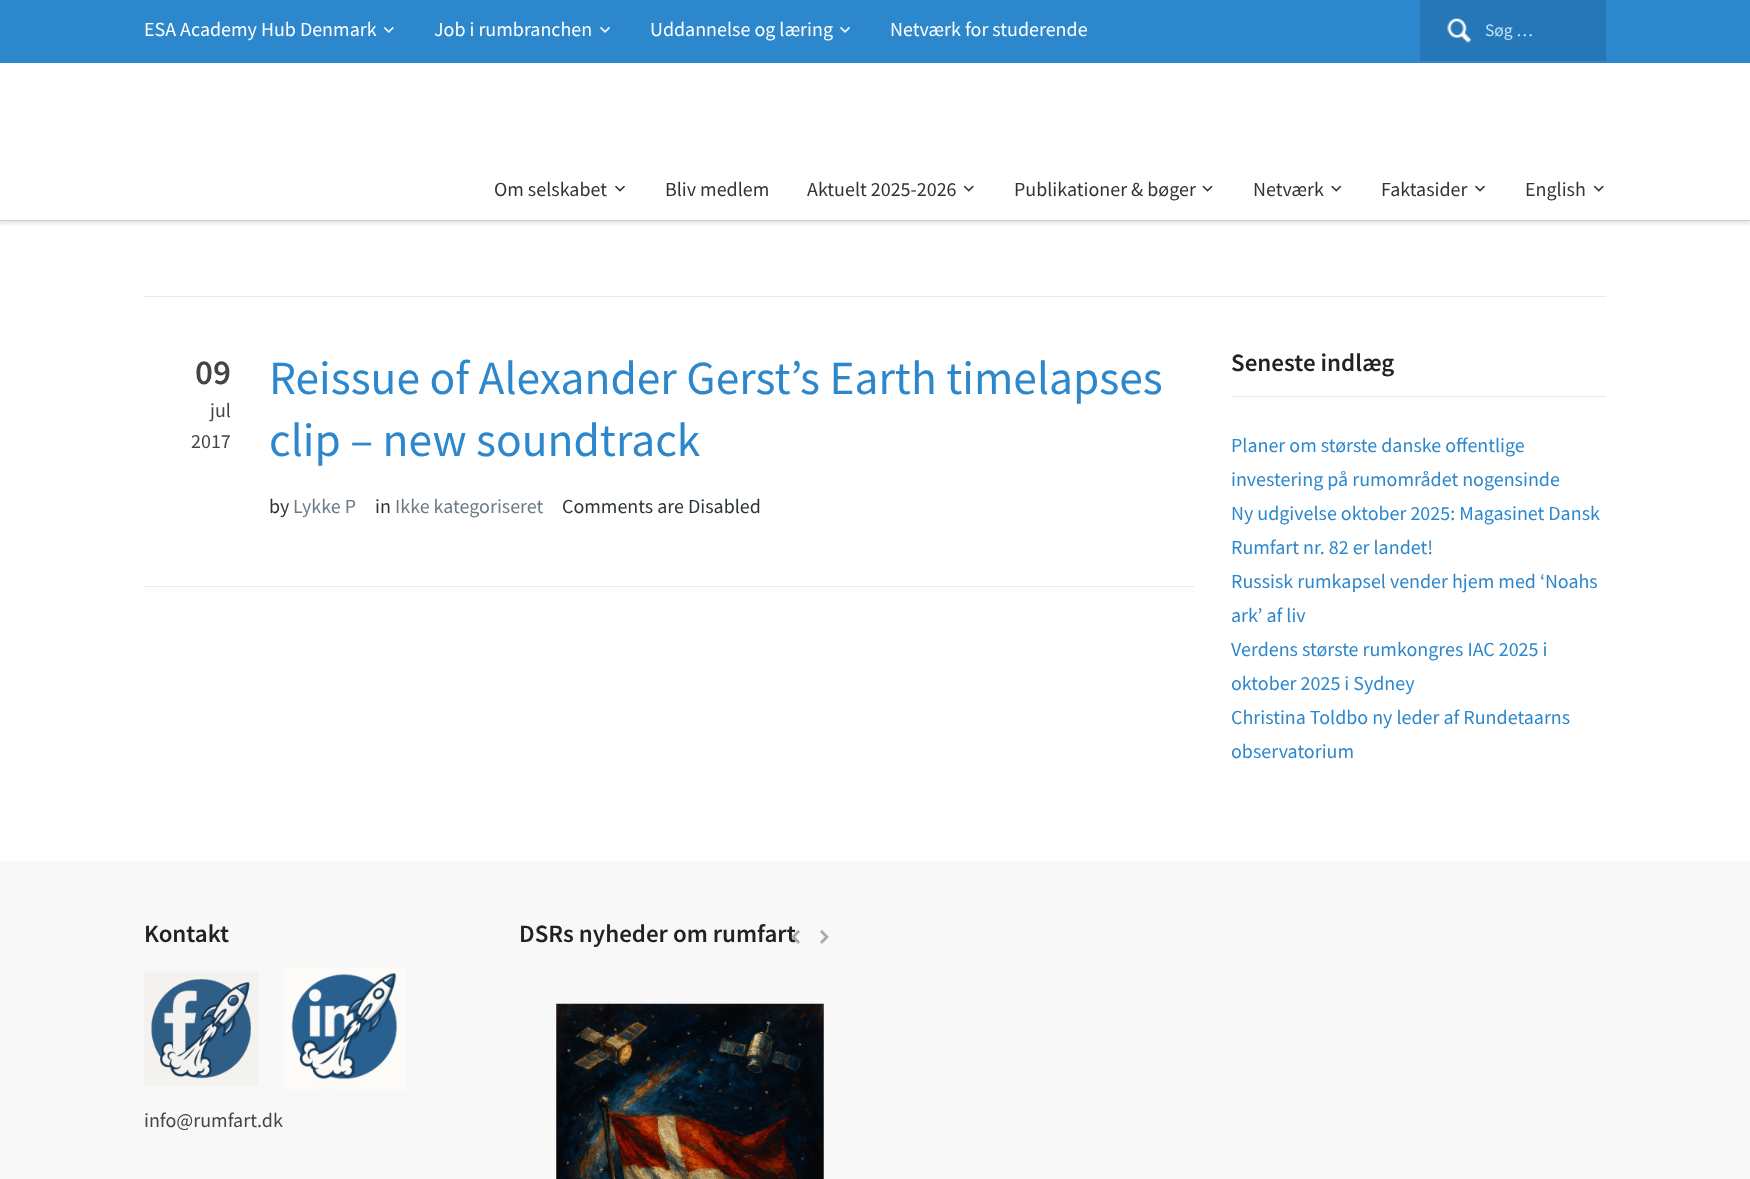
<!DOCTYPE html>
<meta charset="utf-8">
<style>body { margin: 0 } canvas { display: block }</style>
<canvas id="canvas" width="1750" height="1179"></canvas>
<img id="img1" src="img_01.png" hidden>
<img id="img2" src="img_02.png" hidden>
<img id="img3" src="img_03.png" hidden>
<img id="img4" src="img_04.png" hidden>
<img id="img5" src="img_05.png" hidden>
<img id="img6" src="img_06.png" hidden>
<img id="img7" src="img_07.png" hidden>
<img id="img8" src="img_08.png" hidden>
<img id="img9" src="img_09.png" hidden>
<img id="img10" src="img_11.png" hidden>
<img id="img11" src="img_12.png" hidden>
<img id="img12" src="img_10.png" hidden>
<script>
window.onload = function () {
	const canvas = document.getElementById("canvas");
	const ctx = canvas.getContext("2d");
	ctx.miterLimit = 4;
	ctx.fontKerning = "normal";
	function txt(s, x, y) {
		ctx.fillText(s, x, y);
	}
	function fill(x, y, w, h) {
		ctx.fillRect(x, y, w, h);
	}
	function img(id, x, y, w, h) {
		ctx.drawImage(document.getElementById(id), x, y, w, h);
	}

	ctx.fillStyle = "#FFFFFF";
	fill(0, 0, 1750, 1179);
	ctx.save();
	ctx.beginPath();
	ctx.rect(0, 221, 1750, 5);
	ctx.clip();
	ctx.fillStyle = "rgba(0, 0, 0, 0.1)";
	ctx.filter = "blur(2px)";
	ctx.beginPath();
	ctx.rect(-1, 63, 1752, 161);
	ctx.fill();
	ctx.filter = "none";
	ctx.restore();
	ctx.fillStyle = "#2D87CC";
	fill(0, 0, 1750, 63);
	img("img1", 383, 27, 11, 6);
	img("img2", 599, 27, 12, 6);
	img("img2", 839, 27, 12, 6);
	ctx.fillStyle = "#2577B7";
	fill(1420, 0, 186, 61);
	img("img3", 1447, 18, 25, 25);
	ctx.fillStyle = "#CCCCCC";
	fill(0, 220, 1750, 1);
	img("img4", 614, 185, 12, 7);
	img("img5", 963, 185, 11, 7);
	img("img6", 1202, 185, 11, 7);
	img("img7", 1331, 185, 11, 7);
	img("img4", 1474, 185, 12, 7);
	img("img5", 1593, 185, 11, 7);
	ctx.fillStyle = "#EBEBEB";
	fill(144, 296, 1462, 1);
	fill(144, 586, 1050, 1);
	fill(1231, 396, 375, 1);
	ctx.fillStyle = "#F8F8F8";
	fill(0, 861, 1750, 318);
	img("img8", 144, 971, 115, 115);
	img("img9", 283, 967, 123, 123);
	img("img10", 820, 930, 9, 14);
	img("img11", 556, 1003, 268, 176);
	ctx.font = "20px Source Sans Pro";
	ctx.fillStyle = "#FFFFFF";
	txt("ESA Academy Hub Denmark", 144, 36);
	txt("Job i rumbranchen", 434, 36);
	txt("Uddannelse og læring", 650, 36);
	txt("Netværk for studerende", 890, 36);
	ctx.font = "17.5px Source Sans Pro";
	ctx.fillStyle = "#C4E5FF";
	txt("Søg …", 1485, 36);
	ctx.font = "20px Source Sans Pro";
	ctx.fillStyle = "#333333";
	txt("Om selskabet", 494, 196);
	txt("Bliv medlem", 665, 196);
	txt("Aktuelt 2025-2026", 807, 196);
	txt("Publikationer & bøger", 1014, 196);
	txt("Netværk", 1253, 196);
	txt("Faktasider", 1381, 196);
	txt("English", 1525, 196);
	ctx.font = "600 35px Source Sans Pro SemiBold";
	ctx.fillStyle = "#444444";
	txt("09", 195, 384);
	ctx.font = "20px Source Sans Pro";
	txt("jul", 210, 417);
	txt("2017", 191, 448);
	ctx.font = "47.5px Source Sans Pro";
	ctx.fillStyle = "#2D87CC";
	txt("Reissue of Alexander Gerst’s Earth timelapses", 269, 394);
	txt("clip – new soundtrack", 269, 456);
	ctx.font = "20px Source Sans Pro";
	ctx.fillStyle = "#2C343A";
	txt("by", 269, 513);
	ctx.fillStyle = "#6C7A84";
	txt("Lykke P", 293, 513);
	ctx.fillStyle = "#2C343A";
	txt("in", 375, 513);
	ctx.fillStyle = "#6C7A84";
	txt("Ikke kategoriseret", 395, 513);
	ctx.fillStyle = "#2C343A";
	txt("Comments are Disabled", 562, 513);
	ctx.font = "600 25px Source Sans Pro SemiBold";
	ctx.fillStyle = "#222222";
	txt("Seneste indlæg", 1231, 371);
	ctx.font = "20px Source Sans Pro";
	ctx.fillStyle = "#2D87CC";
	txt("Planer om største danske offentlige", 1231, 452);
	txt("investering på rumområdet nogensinde", 1231, 486);
	txt("Ny udgivelse oktober 2025: Magasinet Dansk", 1231, 520);
	txt("Rumfart nr. 82 er landet!", 1231, 554);
	txt("Russisk rumkapsel vender hjem med ‘Noahs", 1231, 588);
	txt("ark’ af liv", 1231, 622);
	txt("Verdens største rumkongres IAC 2025 i", 1231, 656);
	txt("oktober 2025 i Sydney", 1231, 690);
	txt("Christina Toldbo ny leder af Rundetaarns", 1231, 724);
	txt("observatorium", 1231, 758);
	ctx.font = "600 25px Source Sans Pro SemiBold";
	ctx.fillStyle = "#222222";
	txt("Kontakt", 144, 942);
	ctx.font = "20px Source Sans Pro";
	ctx.fillStyle = "#444444";
	txt("info@rumfart.dk", 144, 1127);
	ctx.font = "600 25px Source Sans Pro SemiBold";
	ctx.fillStyle = "#222222";
	txt("DSRs nyheder om rumfart", 519, 942);
	img("img12", 791, 930, 10, 14);
};
</script>
